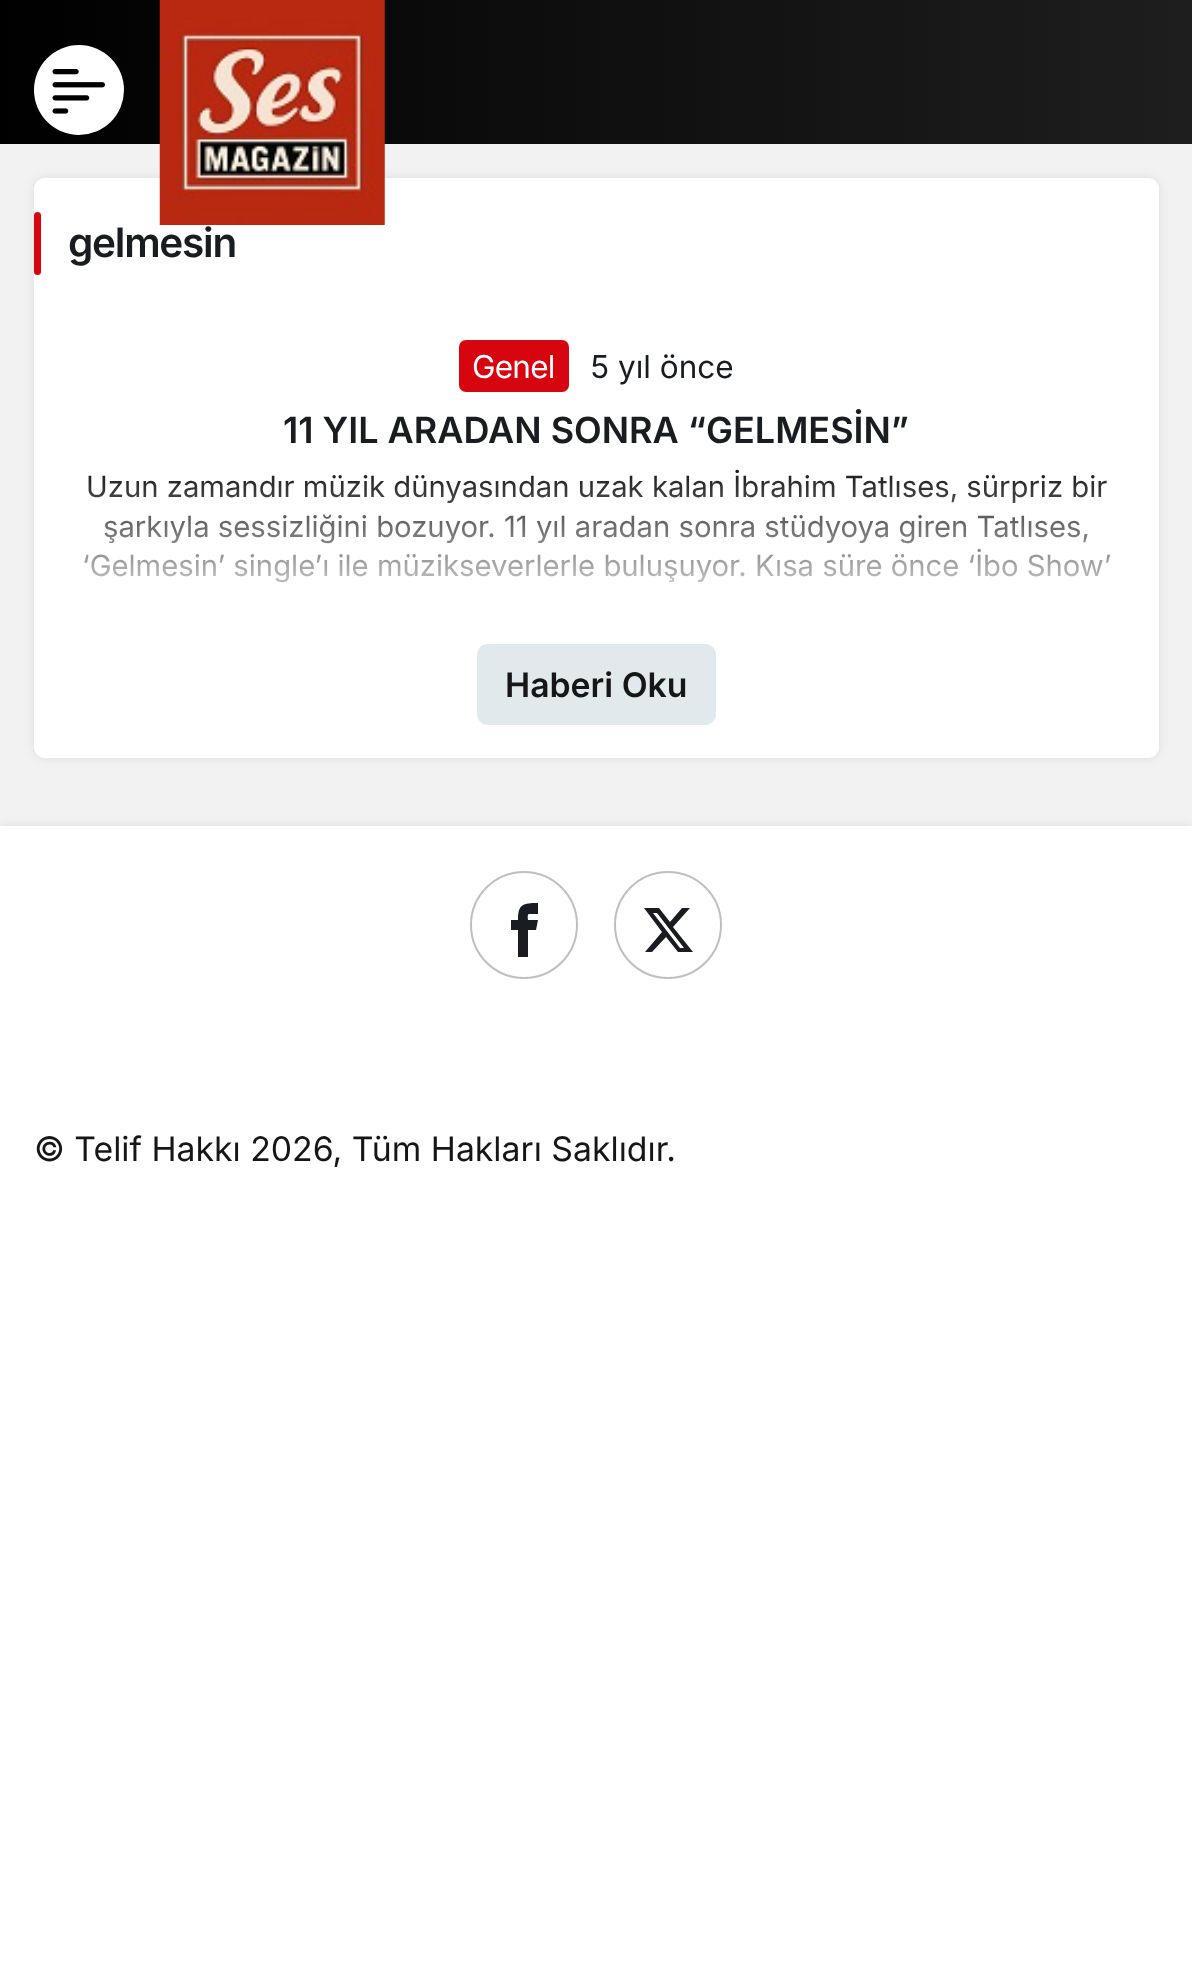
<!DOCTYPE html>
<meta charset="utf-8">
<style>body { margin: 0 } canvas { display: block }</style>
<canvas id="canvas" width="1192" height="1985"></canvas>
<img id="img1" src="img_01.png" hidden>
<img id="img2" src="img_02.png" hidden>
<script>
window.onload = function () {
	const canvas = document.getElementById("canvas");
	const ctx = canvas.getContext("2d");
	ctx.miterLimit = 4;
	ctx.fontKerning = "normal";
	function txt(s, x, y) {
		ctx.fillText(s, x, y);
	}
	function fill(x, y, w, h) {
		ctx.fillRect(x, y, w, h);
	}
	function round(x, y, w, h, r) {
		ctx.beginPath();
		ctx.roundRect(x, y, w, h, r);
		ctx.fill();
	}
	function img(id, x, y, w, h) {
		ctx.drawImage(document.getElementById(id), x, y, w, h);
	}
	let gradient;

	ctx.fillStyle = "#FFFFFF";
	fill(0, 0, 1192, 1985);
	ctx.fillStyle = "#F2F2F3";
	fill(0, 144, 1192, 682);
	gradient = ctx.createLinearGradient(0, 72, 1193, 72);
	gradient.addColorStop(0, "#000000");
	gradient.addColorStop(1, "#1E1E1E");
	ctx.fillStyle = gradient;
	fill(0, 0, 1192, 144);
	ctx.fillStyle = "#FFFFFF";
	ctx.beginPath();
	ctx.arc(79, 90, 45, 0, Math.PI * 2);
	ctx.fill();
	img("img1", 52, 69, 53, 45);
	ctx.fillStyle = "rgba(50, 53, 61, 0.1)";
	ctx.filter = "blur(5.5px)";
	ctx.beginPath();
	ctx.roundRect(34, 178, 1125, 580, 11);
	ctx.fill();
	ctx.filter = "none";
	ctx.fillStyle = "#FFFFFF";
	round(34, 178, 1125, 580, 11);
	img("img2", 159, 0, 226, 225);
	ctx.fillStyle = "#D7050F";
	round(34, 212, 7, 63, 3.5);
	round(459, 340, 110, 52, 7);
	ctx.fillStyle = "#E1E9ED";
	round(477, 644, 239, 81, 11);
	ctx.save();
	ctx.beginPath();
	ctx.rect(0, 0, 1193, 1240);
	ctx.clip();
	ctx.fillStyle = "rgba(50, 53, 61, 0.1)";
	ctx.filter = "blur(5.5px)";
	ctx.beginPath();
	ctx.rect(0, 826, 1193, 414);
	ctx.fill();
	ctx.filter = "none";
	ctx.restore();
	ctx.fillStyle = "#FFFFFF";
	fill(0, 826, 1192, 414);
	ctx.beginPath();
	ctx.arc(524, 925, 53, 0, Math.PI * 2);
	ctx.strokeStyle = "#BFBFBF";
	ctx.lineWidth = 2;
	ctx.stroke();
	ctx.fillStyle = "#191C20";
	ctx.beginPath();
	ctx.moveTo(529, 914);
	ctx.lineTo(538, 914);
	ctx.lineTo(538, 903);
	ctx.bezierCurveTo(523, 903, 518, 904, 518, 920);
	ctx.lineTo(511, 920);
	ctx.lineTo(511, 930);
	ctx.lineTo(518, 930);
	ctx.lineTo(518, 957);
	ctx.lineTo(528, 957);
	ctx.lineTo(528, 930);
	ctx.lineTo(536, 930);
	ctx.lineTo(538, 920);
	ctx.lineTo(528, 920);
	ctx.bezierCurveTo(528, 919, 527, 914, 529, 914);
	ctx.closePath();
	ctx.fill();
	ctx.beginPath();
	ctx.arc(668, 925, 53, 0, Math.PI * 2);
	ctx.stroke();
	ctx.beginPath();
	ctx.moveTo(682, 908);
	ctx.lineTo(690, 908);
	ctx.lineTo(673, 927);
	ctx.lineTo(693, 952);
	ctx.lineTo(678, 952);
	ctx.lineTo(666, 937);
	ctx.lineTo(652, 952);
	ctx.lineTo(645, 952);
	ctx.lineTo(662, 932);
	ctx.lineTo(644, 908);
	ctx.lineTo(659, 908);
	ctx.lineTo(670, 922);
	ctx.closePath();
	ctx.moveTo(680, 948);
	ctx.lineTo(684, 948);
	ctx.lineTo(657, 913);
	ctx.lineTo(653, 913);
	ctx.closePath();
	ctx.fill();
	ctx.letterSpacing = "-1.25px";
	ctx.font = "600 40.5px Inter";
	txt("gelmesin", 68, 257);
	ctx.letterSpacing = "-0.75px";
	ctx.font = "31.5px Inter";
	ctx.fillStyle = "#FFFFFF";
	txt("Genel", 472, 378);
	ctx.letterSpacing = "0px";
	ctx.fillStyle = "#191C20";
	txt("5 yıl önce", 590, 378);
	ctx.font = "600 36px Inter";
	txt("11 YIL ARADAN SONRA “GELMESİN”", 283, 443);
	ctx.font = "29.25px Inter";
	ctx.fillStyle = "#161616";
	txt("Uzun zamandır müzik dünyasından uzak kalan İbrahim Tatlıses, sürpriz bir", 86, 497);
	txt("şarkıyla sessizliğini bozuyor. 11 yıl aradan sonra stüdyoya giren Tatlıses,", 103, 537);
	txt("‘Gelmesin’ single’ı ile müzikseverlerle buluşuyor. Kısa süre önce ‘İbo Show’", 82, 576);
	gradient = ctx.createLinearGradient(596, 468, 596, 626);
	gradient.addColorStop(0, "rgba(255, 255, 255, 0)");
	gradient.addColorStop(1, "#FFFFFF");
	ctx.fillStyle = gradient;
	fill(83, 471, 1027, 112);
	ctx.font = "600 33.75px Inter";
	ctx.fillStyle = "#161616";
	txt("Haberi Oku", 505, 697);
	ctx.font = "33.75px Inter";
	txt("© Telif Hakkı 2026, Tüm Hakları Saklıdır.", 34, 1161);
};
</script>
